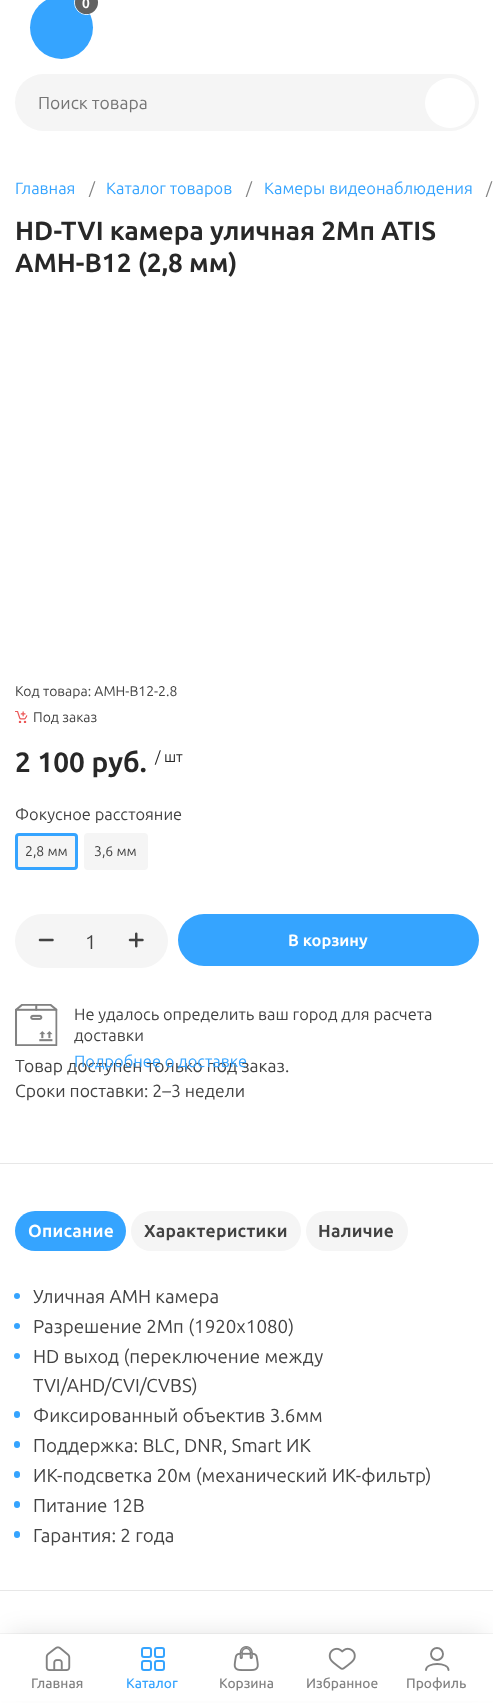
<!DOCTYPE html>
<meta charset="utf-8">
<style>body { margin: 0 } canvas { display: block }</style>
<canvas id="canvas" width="493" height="1703"></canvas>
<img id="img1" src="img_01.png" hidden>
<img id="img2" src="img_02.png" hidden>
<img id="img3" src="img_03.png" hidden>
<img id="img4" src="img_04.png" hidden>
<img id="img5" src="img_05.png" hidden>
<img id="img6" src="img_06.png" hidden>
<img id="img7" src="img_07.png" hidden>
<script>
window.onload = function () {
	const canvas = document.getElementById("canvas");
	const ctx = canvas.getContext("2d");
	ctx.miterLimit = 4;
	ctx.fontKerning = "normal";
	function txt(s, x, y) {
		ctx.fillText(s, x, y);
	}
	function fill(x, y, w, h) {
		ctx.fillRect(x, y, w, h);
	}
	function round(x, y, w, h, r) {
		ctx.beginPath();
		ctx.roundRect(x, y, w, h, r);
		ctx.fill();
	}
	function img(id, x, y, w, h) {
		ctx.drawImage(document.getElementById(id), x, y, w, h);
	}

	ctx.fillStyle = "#FFFFFF";
	fill(0, 0, 493, 1703);
	ctx.fillStyle = "#35A4FF";
	ctx.beginPath();
	ctx.arc(61.5, 27.5, 31.5, 0, Math.PI * 2);
	ctx.fill();
	ctx.beginPath();
	ctx.arc(86.5, 2.5, 12, 0, Math.PI * 2);
	ctx.strokeStyle = "#FFFFFF";
	ctx.stroke();
	ctx.fillStyle = "#626262";
	ctx.beginPath();
	ctx.arc(86.5, 2.5, 11.5, 0, Math.PI * 2);
	ctx.fill();
	ctx.fillStyle = "#F5F5F5";
	round(15, 74, 464, 57, 28.5);
	ctx.fillStyle = "#FFFFFF";
	ctx.beginPath();
	ctx.arc(450, 103, 25, 0, Math.PI * 2);
	ctx.fill();
	img("img1", 15, 711, 13, 12);
	ctx.fillStyle = "#E7E7E7";
	fill(0, 1163, 493, 1);
	ctx.fillStyle = "#F5F5F5";
	ctx.beginPath();
	ctx.roundRect(16.5, 834.5, 60, 34, 2.5);
	ctx.fill();
	ctx.strokeStyle = "#35A4FF";
	ctx.lineWidth = 3;
	ctx.stroke();
	round(84, 833, 64, 37, 4);
	round(15, 914, 153, 54, 27);
	img("img2", 38, 938, 16, 4);
	img("img3", 128, 932, 16, 16);
	ctx.fillStyle = "#35A4FF";
	round(178, 914, 301, 52, 26);
	img("img4", 15, 1004, 43, 42);
	ctx.fillStyle = "#E7E7E7";
	fill(0, 1590, 493, 1);
	ctx.fillStyle = "#35A4FF";
	round(15, 1211, 111, 40, 20);
	ctx.fillStyle = "#F5F5F5";
	round(131, 1211, 170, 40, 20);
	round(306, 1211, 102, 40, 20);
	ctx.fillStyle = "#35A4FF";
	ctx.beginPath();
	ctx.arc(17, 1296, 3, 0, Math.PI * 2);
	ctx.fill();
	ctx.beginPath();
	ctx.arc(17, 1326, 3, 0, Math.PI * 2);
	ctx.fill();
	ctx.beginPath();
	ctx.arc(17, 1356, 3, 0, Math.PI * 2);
	ctx.fill();
	round(14, 1411, 6, 7, 3);
	round(14, 1441, 6, 7, 3);
	round(14, 1471, 6, 7, 3);
	round(14, 1501, 6, 7, 3);
	round(14, 1531, 6, 7, 3);
	ctx.fillStyle = "rgba(0, 0, 0, 0.1)";
	ctx.filter = "blur(12.5px)";
	ctx.beginPath();
	ctx.rect(9, 1633, 476, 52);
	ctx.fill();
	ctx.filter = "none";
	ctx.fillStyle = "rgba(0, 0, 0, 0.04)";
	ctx.beginPath();
	ctx.moveTo(0, 1633);
	ctx.lineTo(0, 1634);
	ctx.lineTo(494, 1634);
	ctx.lineTo(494, 1703);
	ctx.lineTo(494, 1633);
	ctx.closePath();
	ctx.fill();
	ctx.fillStyle = "#FFFFFF";
	fill(0, 1634, 493, 67);
	img("img5", 45, 1646, 26, 25);
	ctx.beginPath();
	ctx.roundRect(142, 1648, 9, 9, 2);
	ctx.lineWidth = 2;
	ctx.stroke();
	ctx.beginPath();
	ctx.roundRect(155, 1648, 9, 9, 2);
	ctx.stroke();
	ctx.beginPath();
	ctx.roundRect(142, 1661, 9, 9, 2);
	ctx.stroke();
	ctx.beginPath();
	ctx.roundRect(155, 1661, 9, 9, 2);
	ctx.stroke();
	img("img6", 233, 1646, 26, 25);
	img("img7", 328, 1647, 28, 23);
	ctx.beginPath();
	ctx.arc(437, 1654, 6, 0, Math.PI * 2);
	ctx.strokeStyle = "#828282";
	ctx.lineWidth = 1.9;
	ctx.stroke();
	ctx.beginPath();
	ctx.moveTo(448.5, 1670);
	ctx.bezierCurveTo(448.5, 1662, 426, 1662, 426, 1670);
	ctx.lineCap = "round";
	ctx.stroke();
	ctx.font = "bold 13.75px Ubuntu";
	txt("0", 82, 8);
	ctx.font = "17.5px Ubuntu";
	ctx.fillStyle = "#757575";
	txt("Поиск товара", 38, 109);
	ctx.font = "16.4px Ubuntu";
	ctx.fillStyle = "#35A4FF";
	txt("Главная", 15, 194);
	ctx.fillStyle = "#828282";
	txt("/", 89, 194);
	ctx.fillStyle = "#35A4FF";
	txt("Каталог товаров", 106, 194);
	ctx.fillStyle = "#828282";
	txt("/", 246, 194);
	ctx.fillStyle = "#35A4FF";
	txt("Камеры видеонаблюдения", 264, 194);
	ctx.fillStyle = "#828282";
	txt("/", 486, 194);
	ctx.font = "bold 26.25px Ubuntu";
	ctx.fillStyle = "#282828";
	txt("HD-TVI камера уличная 2Мп ATIS", 15, 240);
	txt("AMH-B12 (2,8 мм)", 15, 272);
	ctx.font = "14px Ubuntu";
	ctx.fillStyle = "#424242";
	txt("Код товара: AMH-B12-2.8", 15, 696);
	txt("Под заказ", 33, 722);
	ctx.font = "bold 28px Ubuntu";
	ctx.fillStyle = "#282828";
	txt("2 100 руб.", 15, 772);
	ctx.font = "15px Ubuntu";
	txt("/ шт", 155, 762);
	ctx.font = "16.4px Ubuntu";
	ctx.fillStyle = "#424242";
	txt("Фокусное расстояние", 15, 820);
	ctx.font = "14px Ubuntu";
	txt("2,8 мм", 25, 856);
	txt("3,6 мм", 94, 856);
	ctx.font = "20px Ubuntu";
	txt("1", 85, 949);
	ctx.font = "bold 16.4px Ubuntu";
	ctx.fillStyle = "#FFFFFF";
	txt("В корзину", 288, 946);
	ctx.font = "16.4px Ubuntu";
	ctx.fillStyle = "#424242";
	txt("Не удалось определить ваш город для расчета", 74, 1020);
	txt("доставки", 74, 1041);
	ctx.font = "17.5px Ubuntu";
	txt("Товар доступен только под заказ.", 15, 1072);
	ctx.font = "16.4px Ubuntu";
	ctx.fillStyle = "#35A4FF";
	txt("Подробнее о доставке", 74, 1067);
	ctx.font = "17.5px Ubuntu";
	ctx.fillStyle = "#424242";
	txt("Сроки поставки: 2–3 недели", 15, 1097);
	ctx.letterSpacing = "0.25px";
	ctx.font = "bold 17.5px Ubuntu";
	ctx.fillStyle = "#FFFFFF";
	txt("Описание", 28, 1237);
	ctx.fillStyle = "#424242";
	txt("Характеристики", 144, 1237);
	txt("Наличие", 318, 1237);
	ctx.letterSpacing = "0px";
	ctx.font = "18.75px Ubuntu";
	txt("Уличная AMH камера", 33, 1303);
	txt("Разрешение 2Мп (1920х1080)", 33, 1333);
	txt("HD выход (переключение между", 33, 1363);
	txt("TVI/AHD/CVI/CVBS)", 33, 1392);
	txt("Фиксированный объектив 3.6мм", 33, 1422);
	txt("Поддержка: BLC, DNR, Smart ИК", 33, 1452);
	txt("ИК-подсветка 20м (механический ИК-фильтр)", 33, 1482);
	txt("Питание 12В", 33, 1512);
	txt("Гарантия: 2 года", 33, 1542);
	ctx.font = "500 13.75px Ubuntu";
	ctx.fillStyle = "#828282";
	txt("Главная", 31, 1688);
	ctx.fillStyle = "#35A4FF";
	txt("Каталог", 126, 1688);
	ctx.fillStyle = "#828282";
	txt("Корзина", 219, 1688);
	txt("Избранное", 306, 1688);
	txt("Профиль", 406, 1688);
};
</script>
